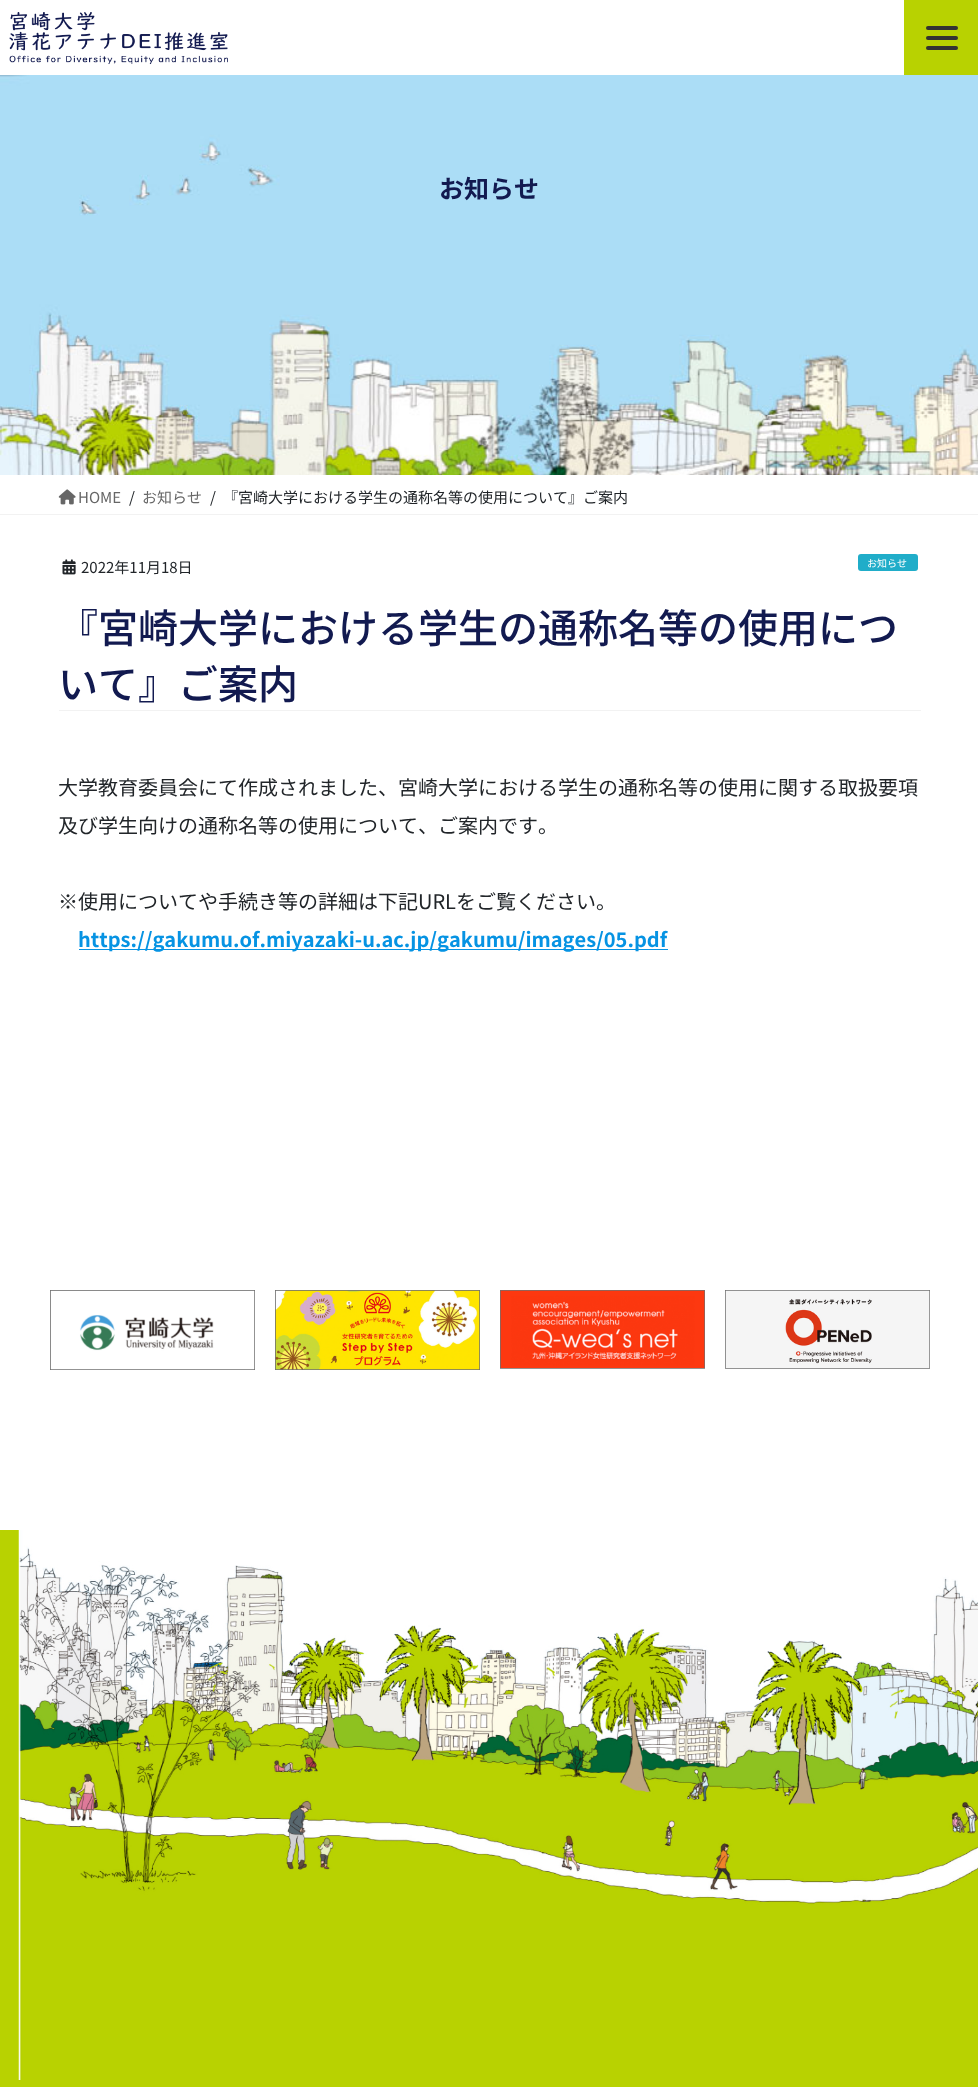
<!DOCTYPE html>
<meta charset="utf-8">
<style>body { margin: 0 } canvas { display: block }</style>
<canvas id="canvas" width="978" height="2087"></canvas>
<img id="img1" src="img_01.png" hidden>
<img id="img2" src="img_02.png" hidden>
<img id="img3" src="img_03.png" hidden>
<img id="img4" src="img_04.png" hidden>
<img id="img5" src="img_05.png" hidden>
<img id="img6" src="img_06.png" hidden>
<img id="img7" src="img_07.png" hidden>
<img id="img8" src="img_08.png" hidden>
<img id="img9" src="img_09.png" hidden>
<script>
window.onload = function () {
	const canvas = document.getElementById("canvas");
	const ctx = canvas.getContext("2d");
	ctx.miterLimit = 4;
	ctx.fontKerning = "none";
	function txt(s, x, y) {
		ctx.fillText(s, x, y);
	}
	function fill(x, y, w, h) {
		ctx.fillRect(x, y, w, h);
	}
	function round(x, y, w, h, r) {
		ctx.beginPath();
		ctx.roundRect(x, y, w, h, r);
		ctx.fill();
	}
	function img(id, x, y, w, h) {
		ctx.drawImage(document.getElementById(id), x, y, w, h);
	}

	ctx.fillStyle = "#FFFFFF";
	fill(0, 0, 978, 2087);
	img("img1", 9, 12, 219, 53);
	ctx.fillStyle = "#B8D201";
	fill(904, 0, 74, 75);
	ctx.fillStyle = "#333333";
	round(926, 36, 32, 4, 2);
	round(926, 26, 32, 4, 2);
	round(926, 46, 32, 4, 2);
	img("img2", 0, 75, 978, 400);
	ctx.fillStyle = "#F2F2F2";
	fill(0, 514, 978, 1);
	img("img3", 58, 489, 18, 16);
	fill(59, 710, 862, 1);
	img("img4", 62, 559, 14, 16);
	ctx.fillStyle = "#20ADC9";
	round(858, 554, 60, 17, 3);
	ctx.fillStyle = "#0693E3";
	fill(79, 949, 589, 1);
	img("img5", 50, 1290, 205, 80);
	img("img6", 275, 1290, 205, 80);
	img("img7", 500, 1290, 205, 79);
	img("img8", 725, 1290, 205, 79);
	ctx.fillStyle = "#B8D201";
	fill(0, 1530, 978, 557);
	img("img9", 18, 1530, 960, 550);
	ctx.font = "bold 25px Noto Sans JP";
	ctx.fillStyle = "#121A50";
	txt("お知らせ", 439, 198);
	ctx.font = "15px Noto Sans JP";
	ctx.fillStyle = "#666666";
	txt("HOME", 78, 503);
	ctx.fillStyle = "#212529";
	txt("/", 129, 503);
	ctx.fillStyle = "#666666";
	txt("お知らせ", 142, 503);
	ctx.fillStyle = "#212529";
	txt("/", 210, 503);
	txt("『宮崎大学における学生の通称名等の使用について』ご案内", 223, 503);
	txt("2022年11月18日", 81, 573);
	ctx.font = "10px Noto Sans JP";
	ctx.fillStyle = "#FFFFFF";
	txt("お知らせ", 867, 567);
	ctx.font = "500 40px Noto Sans JP";
	ctx.fillStyle = "#121A50";
	txt("『宮崎大学における学生の通称名等の使用につ", 58, 643);
	txt("いて』ご案内", 58, 699);
	ctx.font = "20px Noto Sans JP";
	ctx.fillStyle = "#212529";
	txt("大学教育委員会にて作成されました、宮崎大学における学生の通称名等の使用に関する取扱要項", 58, 795);
	txt("及び学生向けの通称名等の使用について、ご案内です。", 58, 833);
	txt("※使用についてや手続き等の詳細は下記URLをご覧ください。", 58, 909);
	ctx.font = "bold 20px Noto Sans JP";
	ctx.fillStyle = "#0693E3";
	txt("https://gakumu.of.miyazaki-u.ac.jp/gakumu/images/05.pdf", 78, 947);
};
</script>
